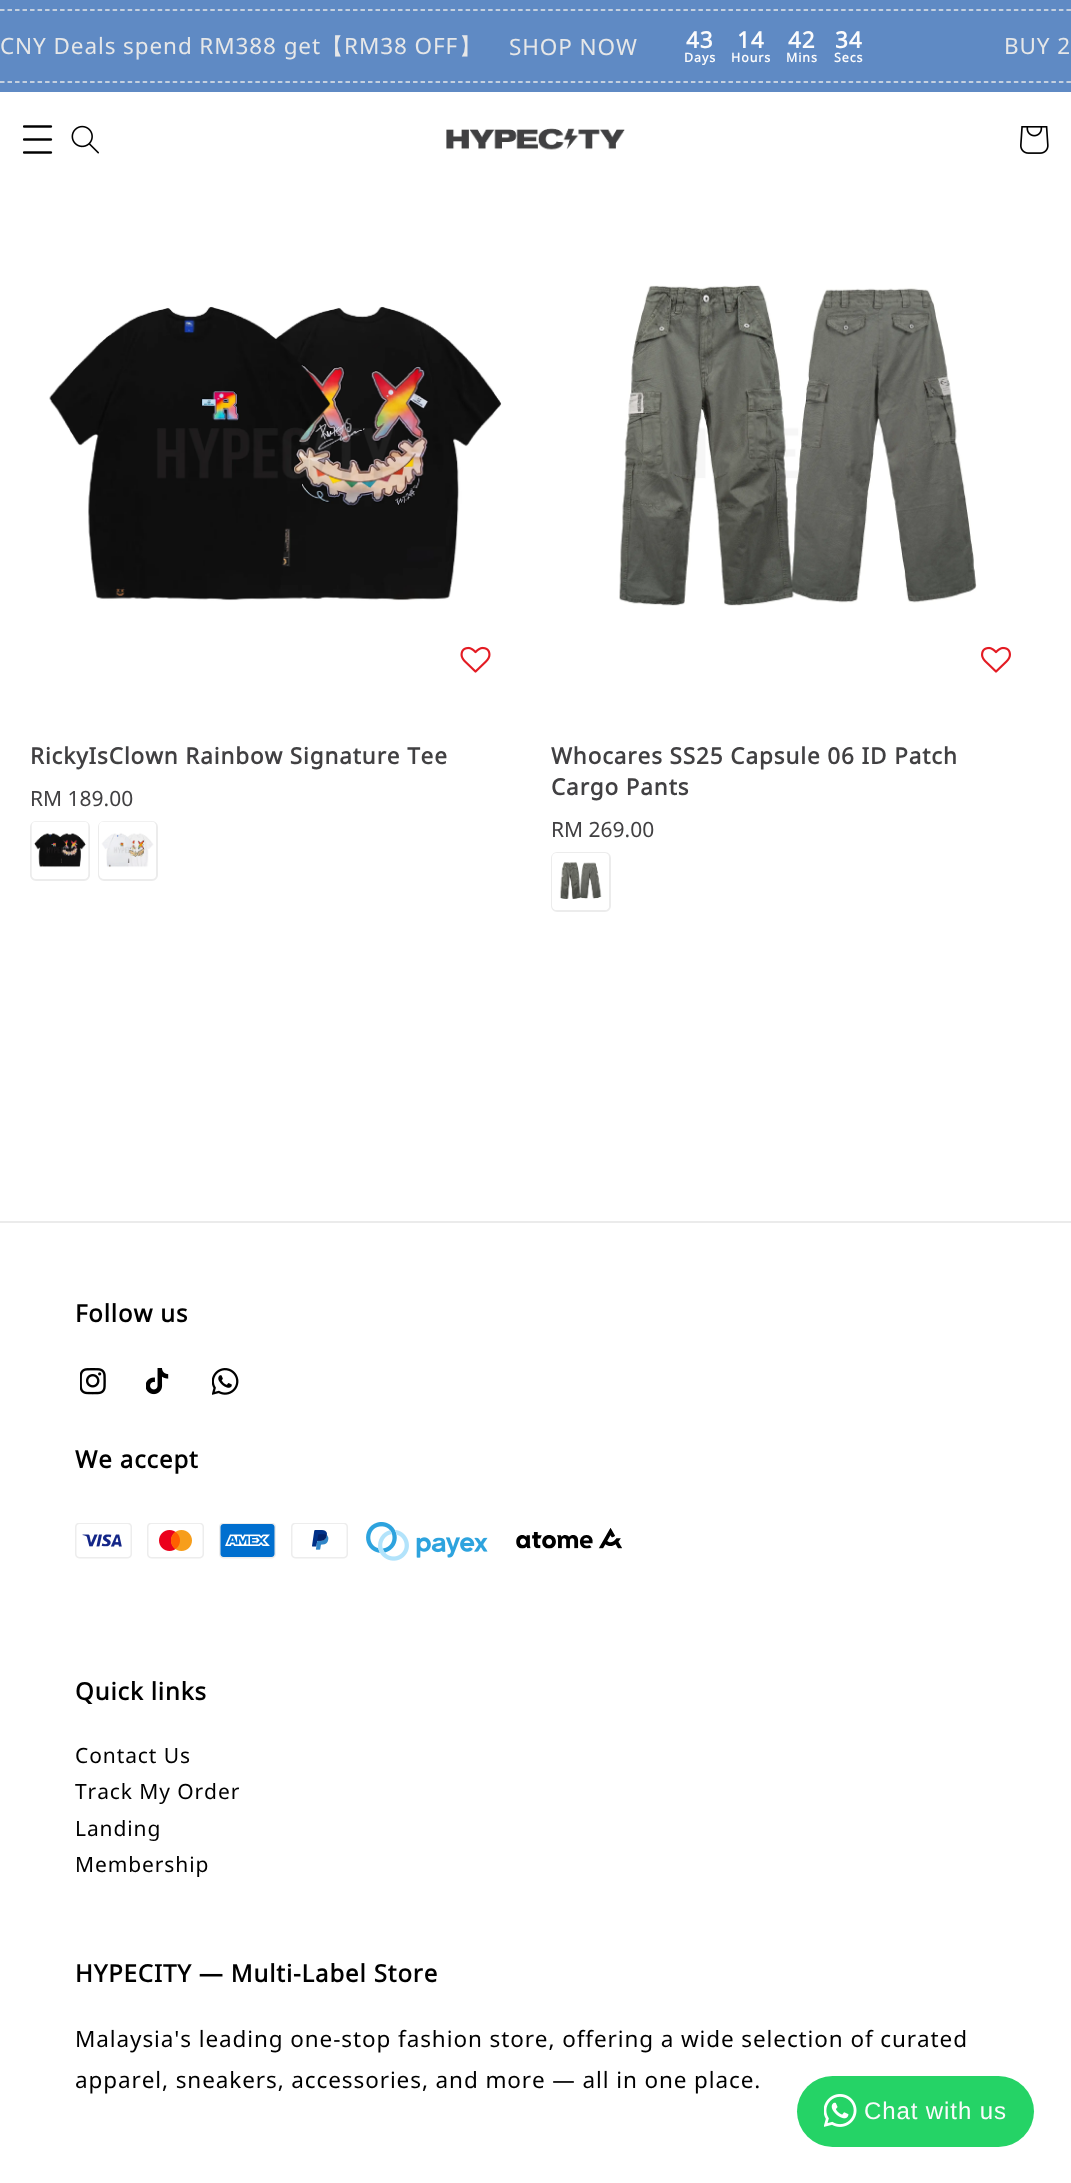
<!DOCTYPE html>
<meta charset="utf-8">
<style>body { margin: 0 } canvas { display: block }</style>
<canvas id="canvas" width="1071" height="2183"></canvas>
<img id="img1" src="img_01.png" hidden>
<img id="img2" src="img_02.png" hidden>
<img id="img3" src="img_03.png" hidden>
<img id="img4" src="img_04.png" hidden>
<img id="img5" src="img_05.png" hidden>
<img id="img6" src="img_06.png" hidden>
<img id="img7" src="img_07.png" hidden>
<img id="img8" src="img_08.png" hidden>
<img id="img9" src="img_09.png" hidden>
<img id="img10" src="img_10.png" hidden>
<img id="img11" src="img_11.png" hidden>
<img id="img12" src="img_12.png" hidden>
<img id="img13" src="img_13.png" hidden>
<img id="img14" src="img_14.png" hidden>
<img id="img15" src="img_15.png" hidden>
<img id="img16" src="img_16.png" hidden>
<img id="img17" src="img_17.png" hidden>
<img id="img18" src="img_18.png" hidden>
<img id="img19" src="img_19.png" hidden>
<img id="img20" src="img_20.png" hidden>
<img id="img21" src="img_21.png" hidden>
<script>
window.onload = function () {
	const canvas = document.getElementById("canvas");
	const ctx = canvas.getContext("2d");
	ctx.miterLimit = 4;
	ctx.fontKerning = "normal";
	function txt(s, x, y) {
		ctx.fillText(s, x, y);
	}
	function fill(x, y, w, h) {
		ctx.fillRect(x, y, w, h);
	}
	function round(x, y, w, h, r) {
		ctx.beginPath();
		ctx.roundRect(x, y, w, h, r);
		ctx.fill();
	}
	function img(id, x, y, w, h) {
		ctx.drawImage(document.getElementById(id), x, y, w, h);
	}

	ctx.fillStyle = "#FFFFFF";
	fill(0, 0, 1071, 2183);
	ctx.fillStyle = "#5F8AC4";
	fill(0, 0, 1071, 92);
	ctx.beginPath();
	ctx.moveTo(0, 10);
	ctx.lineTo(1071, 10);
	ctx.strokeStyle = "#E6E7E8";
	ctx.lineWidth = 1.5;
	ctx.setLineDash([4.5, 3.01]);
	ctx.stroke();
	ctx.beginPath();
	ctx.moveTo(0, 82);
	ctx.lineTo(1071, 82);
	ctx.stroke();
	img("img1", 23, 125, 30, 29);
	img("img2", 71, 125, 28, 29);
	img("img3", 446, 128, 179, 22);
	img("img4", 1020, 126, 29, 28);
	img("img5", 49, 306, 453, 295);
	img("img6", 460, 646, 31, 27);
	ctx.beginPath();
	ctx.roundRect(31, 822, 58, 58, 5);
	ctx.strokeStyle = "#ECECEC";
	ctx.lineWidth = 2;
	ctx.setLineDash([]);
	ctx.stroke();
	img("img7", 31, 821, 58, 56);
	ctx.beginPath();
	ctx.roundRect(99, 822, 58, 58, 5);
	ctx.stroke();
	img("img8", 99, 821, 57, 57);
	img("img9", 619, 285, 358, 321);
	img("img10", 981, 646, 30, 27);
	ctx.beginPath();
	ctx.roundRect(552, 853, 58, 58, 5);
	ctx.stroke();
	img("img11", 552, 853, 57, 57);
	ctx.fillStyle = "#EBEBEB";
	fill(0, 1221, 1071, 2);
	img("img12", 80, 1368, 26, 27);
	img("img13", 146, 1368, 23, 27);
	img("img14", 212, 1368, 27, 27);
	img("img15", 75, 1523, 57, 36);
	img("img16", 147, 1523, 57, 36);
	img("img17", 219, 1523, 57, 36);
	img("img18", 291, 1523, 57, 36);
	img("img19", 366, 1522, 122, 39);
	img("img20", 516, 1528, 106, 21);
	ctx.fillStyle = "#25D366";
	round(797, 2076, 237, 71, 35.5);
	img("img21", 824, 2094, 33, 33);
	ctx.letterSpacing = "0.9px";
	ctx.font = "22.5px Noto Sans Gothic";
	ctx.fillStyle = "#E6E7E8";
	txt("CNY Deals spend RM388 get", 0, 54);
	ctx.font = "500 22.5px WenQuanYi Zen Hei";
	txt("【", 321, 54);
	ctx.font = "22.5px Noto Sans Gothic";
	txt("RM38 OFF", 344, 54);
	ctx.font = "500 22.5px WenQuanYi Zen Hei";
	txt("】", 459, 54);
	ctx.font = "22.5px Noto Sans Gothic";
	txt("SHOP NOW", 509, 55);
	ctx.font = "bold 22.5px Noto Sans Gothic";
	ctx.fillStyle = "#FBFBFC";
	txt("43", 686, 48);
	ctx.font = "bold 12.5px Noto Sans Gothic";
	txt("Days", 684, 62);
	ctx.font = "bold 22.5px Noto Sans Gothic";
	txt("14", 737, 48);
	ctx.font = "bold 12.5px Noto Sans Gothic";
	txt("Hours", 731, 62);
	ctx.font = "bold 22.5px Noto Sans Gothic";
	txt("42", 788, 48);
	ctx.font = "bold 12.5px Noto Sans Gothic";
	txt("Mins", 786, 62);
	ctx.font = "bold 22.5px Noto Sans Gothic";
	txt("34", 835, 48);
	ctx.font = "bold 12.5px Noto Sans Gothic";
	txt("Secs", 834, 62);
	ctx.font = "22.5px Noto Sans Gothic";
	ctx.fillStyle = "#E6E7E8";
	txt("BUY 2", 1004, 54);
	ctx.font = "bold 22.5px Noto Sans Gothic";
	ctx.fillStyle = "#414042";
	txt("RickyIsClown Rainbow Signature Tee", 30, 764);
	ctx.letterSpacing = "0px";
	ctx.font = "21px Noto Sans Gothic";
	txt("RM 189.00", 30, 806);
	ctx.letterSpacing = "0.9px";
	ctx.font = "bold 22.5px Noto Sans Gothic";
	txt("Whocares SS25 Capsule 06 ID Patch", 551, 764);
	txt("Cargo Pants", 551, 795);
	ctx.letterSpacing = "0px";
	ctx.font = "21px Noto Sans Gothic";
	txt("RM 269.00", 551, 837);
	ctx.letterSpacing = "0.9px";
	ctx.font = "bold 24px Noto Sans Gothic";
	ctx.fillStyle = "#000000";
	txt("Follow us", 75, 1322);
	txt("We accept", 75, 1468);
	txt("Quick links", 75, 1700);
	ctx.font = "21px Noto Sans Gothic";
	txt("Contact Us", 75, 1763);
	txt("Track My Order", 75, 1799);
	txt("Landing", 75, 1836);
	txt("Membership", 75, 1872);
	ctx.font = "bold 24px Noto Sans Gothic";
	txt("HYPECITY — Multi-Label Store", 75, 1982);
	ctx.font = "22.5px Noto Sans Gothic";
	txt("Malaysia's leading one-stop fashion store, offering a wide selection of curated", 75, 2047);
	txt("apparel, sneakers, accessories, and more — all in one place.", 75, 2088);
	ctx.font = "24px Liberation Sans";
	ctx.fillStyle = "#FBFBFC";
	txt("Chat with us", 864, 2119);
};
</script>
